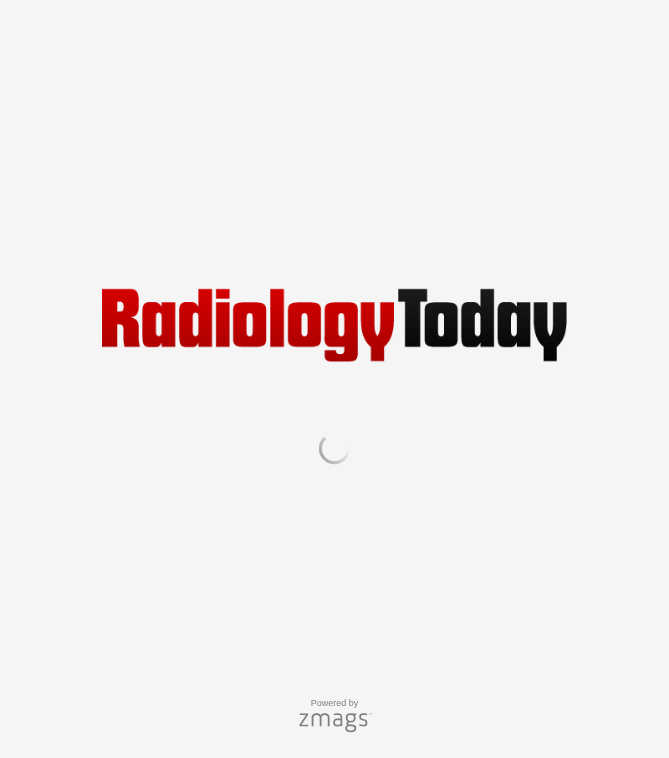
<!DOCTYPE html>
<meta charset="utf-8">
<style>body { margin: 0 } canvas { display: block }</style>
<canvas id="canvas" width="669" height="758"></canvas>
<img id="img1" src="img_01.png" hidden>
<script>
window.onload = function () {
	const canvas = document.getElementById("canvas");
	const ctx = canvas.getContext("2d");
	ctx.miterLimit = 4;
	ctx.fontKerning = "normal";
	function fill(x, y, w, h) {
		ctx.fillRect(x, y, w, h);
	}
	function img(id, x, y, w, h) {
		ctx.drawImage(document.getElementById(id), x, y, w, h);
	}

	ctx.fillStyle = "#FFFFFF";
	fill(0, 0, 669, 758);
	img("img1", 0, 0, 669, 758);
};
</script>
